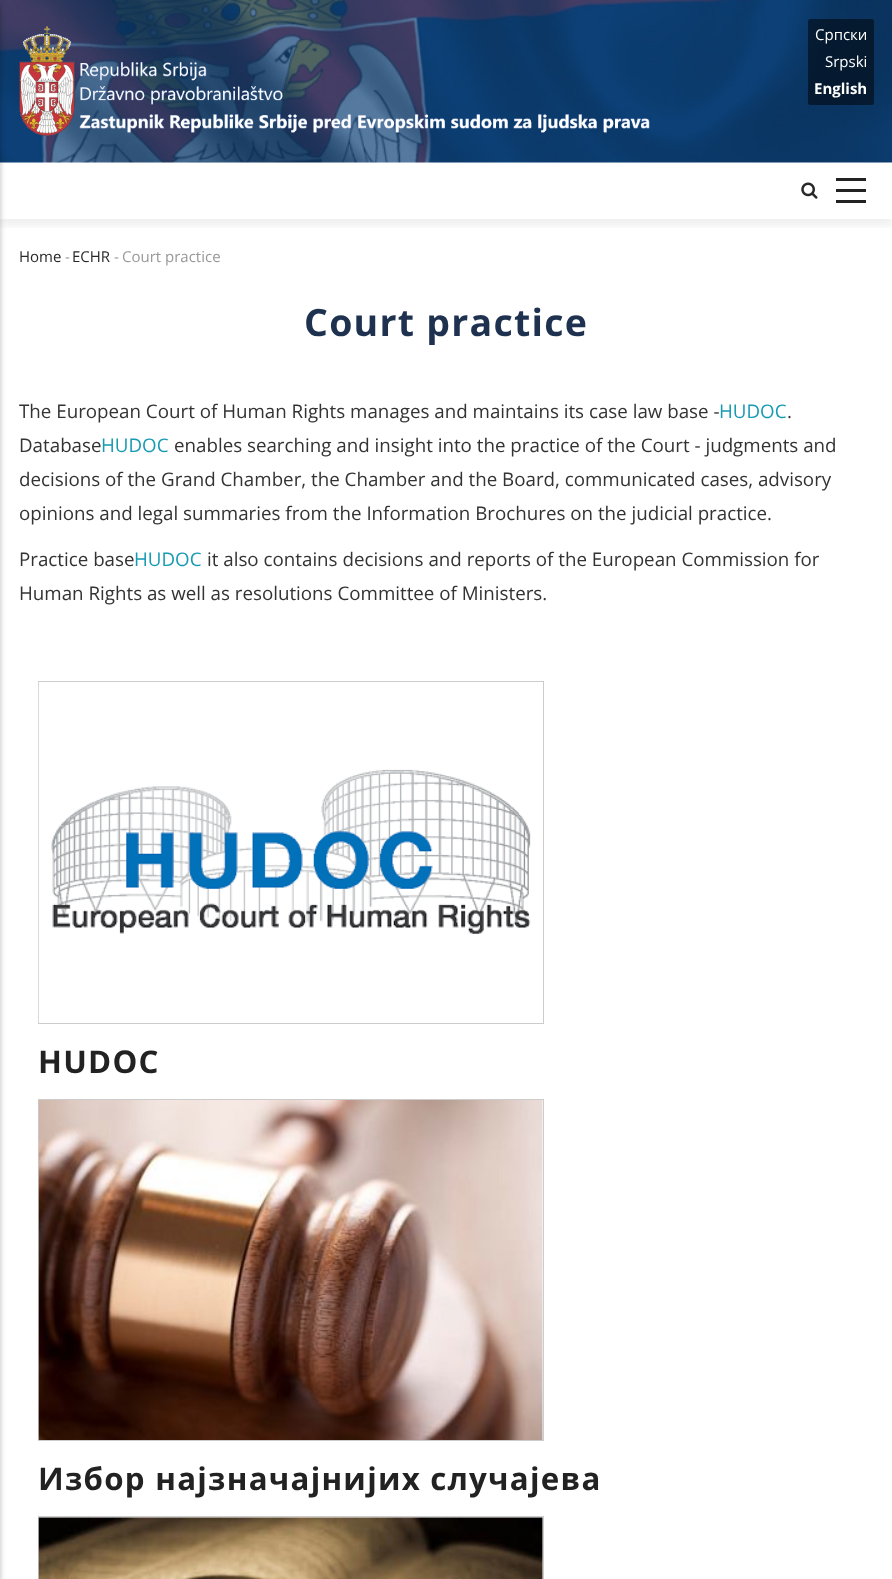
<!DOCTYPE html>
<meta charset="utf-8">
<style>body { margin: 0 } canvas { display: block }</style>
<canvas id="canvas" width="892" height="1579"></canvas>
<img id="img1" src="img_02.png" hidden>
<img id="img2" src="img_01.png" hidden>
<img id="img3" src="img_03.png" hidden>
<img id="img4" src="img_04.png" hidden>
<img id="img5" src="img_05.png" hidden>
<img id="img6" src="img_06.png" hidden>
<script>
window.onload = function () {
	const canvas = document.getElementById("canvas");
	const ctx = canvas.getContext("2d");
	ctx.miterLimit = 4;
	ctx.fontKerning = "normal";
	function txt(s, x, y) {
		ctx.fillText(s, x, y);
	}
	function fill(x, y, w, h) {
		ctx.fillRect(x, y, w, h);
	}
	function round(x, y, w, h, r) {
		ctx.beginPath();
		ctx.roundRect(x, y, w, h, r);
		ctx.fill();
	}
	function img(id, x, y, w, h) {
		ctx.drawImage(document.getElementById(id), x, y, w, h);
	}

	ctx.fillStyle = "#FFFFFF";
	fill(0, 0, 892, 1579);
	img("img1", 0, 0, 892, 163);
	ctx.save();
	ctx.beginPath();
	ctx.rect(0, 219, 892, 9);
	ctx.clip();
	ctx.fillStyle = "rgba(0, 0, 0, 0.06)";
	ctx.filter = "blur(4px)";
	ctx.beginPath();
	ctx.rect(0, 170, 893, 56);
	ctx.fill();
	ctx.filter = "none";
	ctx.restore();
	ctx.fillStyle = "rgba(0, 0, 0, 0.2)";
	ctx.filter = "blur(2.5px)";
	ctx.beginPath();
	ctx.rect(-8, 4, 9, 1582);
	ctx.fill();
	ctx.filter = "none";
	img("img2", 801, 182, 17, 17);
	ctx.fillStyle = "#222222";
	fill(836, 178, 30, 3);
	fill(836, 189, 30, 3);
	fill(836, 200, 30, 3);
	img("img3", 19, 26, 631, 110);
	ctx.fillStyle = "rgba(0, 0, 0, 0.5)";
	round(808, 19, 66, 86, 2.5);
	ctx.strokeStyle = "#CCCCCC";
	ctx.strokeRect(38.5, 681.5, 505, 342);
	img("img4", 38, 682, 493, 341);
	ctx.strokeRect(38.5, 1099.5, 505, 341);
	img("img5", 38, 1100, 505, 340);
	ctx.strokeRect(38.5, 1516.5, 505, 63);
	img("img6", 38, 1517, 505, 62);
	ctx.font = "15px Open Sans";
	ctx.fillStyle = "#FFFFFF";
	txt("Српски", 815, 40);
	txt("Srpski", 825, 67);
	ctx.font = "bold 15px Open Sans";
	txt("English", 814, 94);
	ctx.font = "15px Open Sans";
	ctx.fillStyle = "#282828";
	txt("Home", 19, 262);
	ctx.fillStyle = "#999999";
	txt("-", 65, 262);
	ctx.fillStyle = "#282828";
	txt("ECHR", 72, 262);
	ctx.fillStyle = "#999999";
	txt("-", 114, 262);
	txt("Court practice", 122, 262);
	ctx.letterSpacing = "1.25px";
	ctx.font = "bold 37.5px Open Sans";
	ctx.fillStyle = "#1E314F";
	txt("Court practice", 304, 336);
	ctx.letterSpacing = "0px";
	ctx.font = "18.75px Open Sans";
	ctx.fillStyle = "#333333";
	txt("The European Court of Human Rights manages and maintains its case law base -", 19, 418);
	ctx.fillStyle = "#179BB2";
	txt("HUDOC", 719, 418);
	ctx.fillStyle = "#333333";
	txt(".", 787, 418);
	txt("Database", 19, 452);
	ctx.fillStyle = "#179BB2";
	txt("HUDOC", 101, 452);
	ctx.fillStyle = "#333333";
	txt("enables searching and insight into the practice of the Court - judgments and", 174, 452);
	txt("decisions of the Grand Chamber, the Chamber and the Board, communicated cases, advisory", 19, 486);
	txt("opinions and legal summaries from the Information Brochures on the judicial practice.", 19, 520);
	txt("Practice base", 19, 566);
	ctx.fillStyle = "#179BB2";
	txt("HUDOC", 134, 566);
	ctx.fillStyle = "#333333";
	txt("it also contains decisions and reports of the European Commission for", 207, 566);
	txt("Human Rights as well as resolutions Committee of Ministers.", 19, 600);
	ctx.letterSpacing = "1.25px";
	ctx.font = "bold 31.25px Open Sans";
	ctx.fillStyle = "#222222";
	txt("HUDOC", 38, 1073);
	txt("Избор најзначајнијих случајева", 38, 1490);
};
</script>
